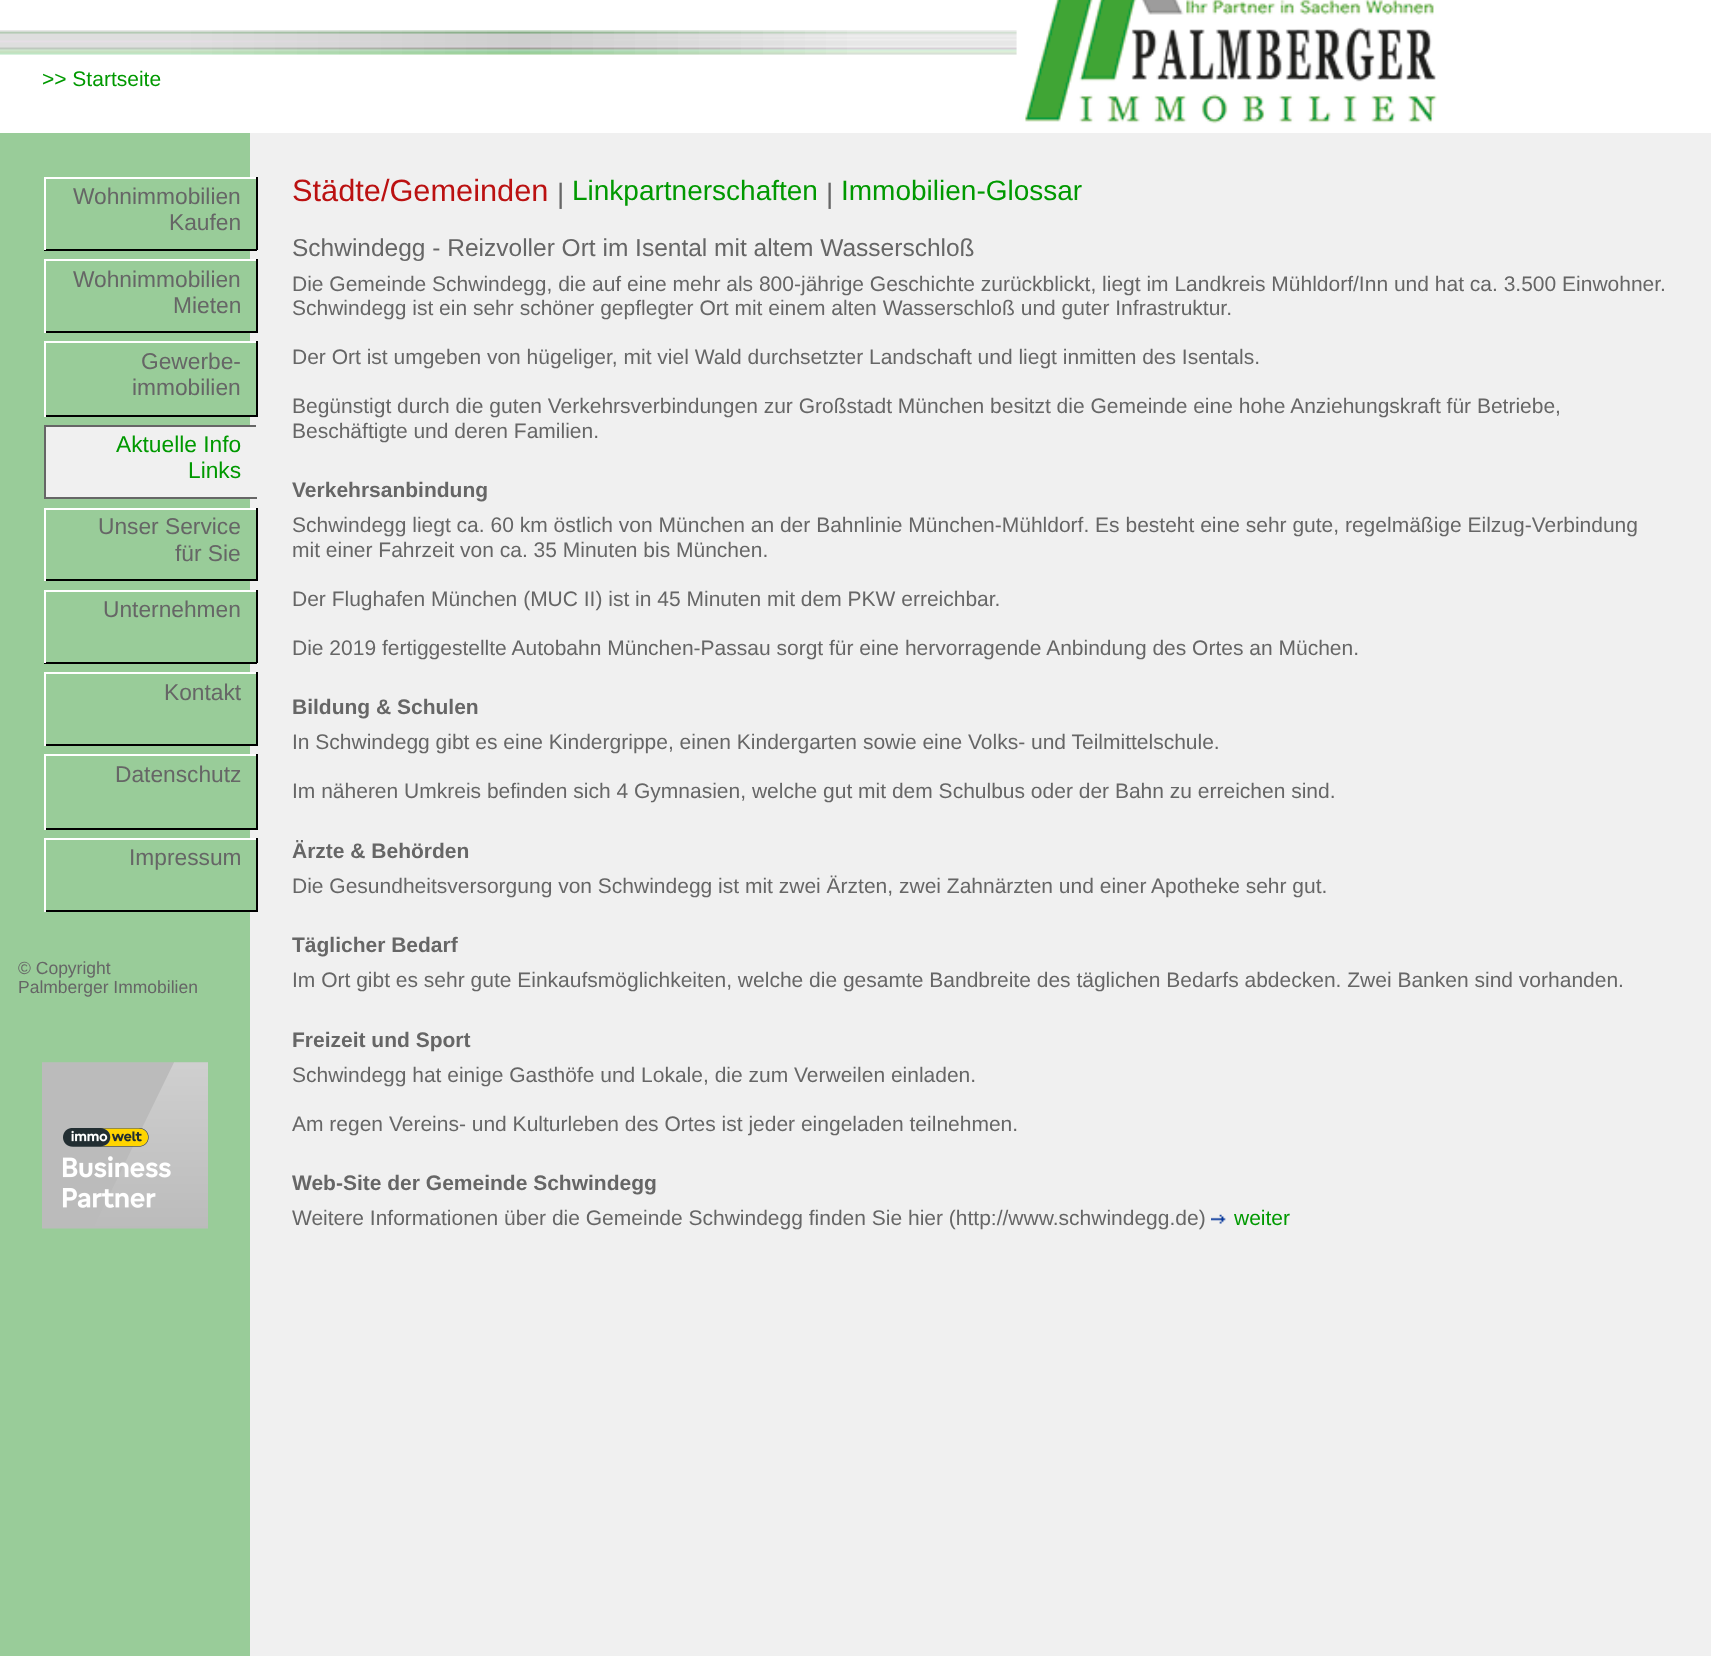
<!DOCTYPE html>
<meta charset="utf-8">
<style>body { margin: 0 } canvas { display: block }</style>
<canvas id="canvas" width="1711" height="1656"></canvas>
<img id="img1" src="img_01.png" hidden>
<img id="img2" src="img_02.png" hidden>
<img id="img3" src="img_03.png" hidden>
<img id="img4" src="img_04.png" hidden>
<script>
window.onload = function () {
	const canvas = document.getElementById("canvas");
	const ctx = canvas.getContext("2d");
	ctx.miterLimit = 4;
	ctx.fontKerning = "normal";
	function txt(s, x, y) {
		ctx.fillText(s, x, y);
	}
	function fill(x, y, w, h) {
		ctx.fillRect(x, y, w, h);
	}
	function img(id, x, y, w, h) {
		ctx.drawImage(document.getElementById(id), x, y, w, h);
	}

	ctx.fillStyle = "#F0F0F0";
	fill(0, 0, 1711, 1656);
	ctx.fillStyle = "#FFFFFF";
	fill(0, 0, 1711, 133);
	img("img1", 0, 30, 1017, 25);
	img("img2", 1016, 0, 421, 124);
	ctx.fillStyle = "#99CC99";
	fill(0, 133, 250, 1523);
	fill(250, 179, 6, 70);
	ctx.fillStyle = "#FFFFFF";
	fill(44, 177, 213, 2);
	ctx.fillStyle = "#000000";
	fill(256, 177, 2, 73);
	fill(44, 249, 213, 2);
	ctx.fillStyle = "#FFFFFF";
	fill(44, 177, 2, 73);
	ctx.fillStyle = "#99CC99";
	fill(250, 261, 6, 70);
	ctx.fillStyle = "#FFFFFF";
	fill(44, 259, 213, 2);
	ctx.fillStyle = "#000000";
	fill(256, 259, 2, 74);
	fill(44, 331, 213, 2);
	ctx.fillStyle = "#FFFFFF";
	fill(44, 259, 2, 74);
	ctx.fillStyle = "#99CC99";
	fill(250, 343, 6, 72);
	ctx.fillStyle = "#FFFFFF";
	fill(44, 341, 213, 2);
	ctx.fillStyle = "#000000";
	fill(256, 341, 2, 76);
	fill(44, 415, 213, 2);
	ctx.fillStyle = "#FFFFFF";
	fill(44, 341, 2, 76);
	ctx.fillStyle = "#F0F0F0";
	fill(46, 427, 204, 70);
	ctx.fillStyle = "#666666";
	fill(44, 425, 213, 2);
	ctx.fillStyle = "#F0F0F0";
	fill(256, 425, 1, 2);
	ctx.fillStyle = "#666666";
	fill(44, 497, 213, 2);
	fill(44, 425, 2, 74);
	ctx.fillStyle = "#99CC99";
	fill(250, 510, 6, 69);
	ctx.fillStyle = "#FFFFFF";
	fill(44, 508, 213, 2);
	ctx.fillStyle = "#000000";
	fill(256, 508, 2, 73);
	fill(44, 579, 213, 2);
	ctx.fillStyle = "#FFFFFF";
	fill(44, 508, 2, 73);
	ctx.fillStyle = "#99CC99";
	fill(250, 592, 6, 70);
	ctx.fillStyle = "#FFFFFF";
	fill(44, 590, 213, 2);
	ctx.fillStyle = "#000000";
	fill(256, 590, 2, 73);
	fill(44, 662, 213, 2);
	ctx.fillStyle = "#FFFFFF";
	fill(44, 590, 2, 73);
	ctx.fillStyle = "#99CC99";
	fill(250, 674, 6, 70);
	ctx.fillStyle = "#FFFFFF";
	fill(44, 672, 213, 2);
	ctx.fillStyle = "#000000";
	fill(256, 672, 2, 74);
	fill(44, 744, 213, 2);
	ctx.fillStyle = "#FFFFFF";
	fill(44, 672, 2, 74);
	ctx.fillStyle = "#99CC99";
	fill(250, 756, 6, 72);
	ctx.fillStyle = "#FFFFFF";
	fill(44, 754, 213, 2);
	ctx.fillStyle = "#000000";
	fill(256, 754, 2, 76);
	fill(44, 828, 213, 2);
	ctx.fillStyle = "#FFFFFF";
	fill(44, 754, 2, 76);
	ctx.fillStyle = "#99CC99";
	fill(250, 840, 6, 70);
	ctx.fillStyle = "#FFFFFF";
	fill(44, 838, 213, 2);
	ctx.fillStyle = "#000000";
	fill(256, 838, 2, 74);
	fill(44, 910, 213, 2);
	ctx.fillStyle = "#FFFFFF";
	fill(44, 838, 2, 74);
	img("img3", 42, 1062, 166, 167);
	img("img4", 1211, 1214, 15, 10);
	ctx.font = "21px Liberation Sans";
	ctx.fillStyle = "#009900";
	txt(">> Startseite", 42, 86);
	ctx.font = "22.75px Liberation Sans";
	ctx.fillStyle = "#666666";
	txt("Wohnimmobilien", 73, 204);
	txt("Kaufen", 169, 230);
	txt("Wohnimmobilien", 73, 287);
	txt("Mieten", 173, 313);
	txt("Gewerbe-", 141, 369);
	txt("immobilien", 132, 395);
	ctx.fillStyle = "#009900";
	txt("Aktuelle Info", 116, 452);
	txt("Links", 188, 478);
	ctx.fillStyle = "#666666";
	txt("Unser Service", 98, 534);
	txt("für Sie", 175, 561);
	txt("Unternehmen", 103, 617);
	txt("Kontakt", 164, 700);
	txt("Datenschutz", 115, 782);
	txt("Impressum", 129, 865);
	ctx.font = "17.5px Liberation Sans";
	txt("© Copyright", 18, 974);
	txt("Palmberger Immobilien", 18, 993);
	ctx.font = "30.75px Liberation Sans";
	ctx.fillStyle = "#BB1111";
	txt("Städte/Gemeinden", 292, 201);
	ctx.font = "28px Liberation Sans";
	ctx.fillStyle = "#666666";
	txt("|", 557, 203);
	ctx.fillStyle = "#009900";
	txt("Linkpartnerschaften", 572, 200);
	ctx.fillStyle = "#666666";
	txt("|", 826, 203);
	ctx.fillStyle = "#009900";
	txt("Immobilien-Glossar", 841, 200);
	ctx.font = "24.5px Liberation Sans";
	ctx.fillStyle = "#666666";
	txt("Schwindegg - Reizvoller Ort im Isental mit altem Wasserschloß", 292, 256);
	ctx.font = "21px Liberation Sans";
	txt("Die Gemeinde Schwindegg, die auf eine mehr als 800-jährige Geschichte zurückblickt, liegt im Landkreis Mühldorf/Inn und hat ca. 3.500 Einwohner.", 292, 291);
	txt("Schwindegg ist ein sehr schöner gepflegter Ort mit einem alten Wasserschloß und guter Infrastruktur.", 292, 315);
	txt("Der Ort ist umgeben von hügeliger, mit viel Wald durchsetzter Landschaft und liegt inmitten des Isentals.", 292, 364);
	txt("Begünstigt durch die guten Verkehrsverbindungen zur Großstadt München besitzt die Gemeinde eine hohe Anziehungskraft für Betriebe,", 292, 413);
	txt("Beschäftigte und deren Familien.", 292, 438);
	ctx.font = "bold 21px Liberation Sans";
	txt("Verkehrsanbindung", 292, 497);
	ctx.font = "21px Liberation Sans";
	txt("Schwindegg liegt ca. 60 km östlich von München an der Bahnlinie München-Mühldorf. Es besteht eine sehr gute, regelmäßige Eilzug-Verbindung", 292, 532);
	txt("mit einer Fahrzeit von ca. 35 Minuten bis München.", 292, 557);
	txt("Der Flughafen München (MUC II) ist in 45 Minuten mit dem PKW erreichbar.", 292, 606);
	txt("Die 2019 fertiggestellte Autobahn München-Passau sorgt für eine hervorragende Anbindung des Ortes an Müchen.", 292, 655);
	ctx.font = "bold 21px Liberation Sans";
	txt("Bildung & Schulen", 292, 714);
	ctx.font = "21px Liberation Sans";
	txt("In Schwindegg gibt es eine Kindergrippe, einen Kindergarten sowie eine Volks- und Teilmittelschule.", 292, 749);
	txt("Im näheren Umkreis befinden sich 4 Gymnasien, welche gut mit dem Schulbus oder der Bahn zu erreichen sind.", 292, 798);
	ctx.font = "bold 21px Liberation Sans";
	txt("Ärzte & Behörden", 292, 858);
	ctx.font = "21px Liberation Sans";
	txt("Die Gesundheitsversorgung von Schwindegg ist mit zwei Ärzten, zwei Zahnärzten und einer Apotheke sehr gut.", 292, 893);
	ctx.font = "bold 21px Liberation Sans";
	txt("Täglicher Bedarf", 292, 952);
	ctx.font = "21px Liberation Sans";
	txt("Im Ort gibt es sehr gute Einkaufsmöglichkeiten, welche die gesamte Bandbreite des täglichen Bedarfs abdecken. Zwei Banken sind vorhanden.", 292, 987);
	ctx.font = "bold 21px Liberation Sans";
	txt("Freizeit und Sport", 292, 1047);
	ctx.font = "21px Liberation Sans";
	txt("Schwindegg hat einige Gasthöfe und Lokale, die zum Verweilen einladen.", 292, 1082);
	txt("Am regen Vereins- und Kulturleben des Ortes ist jeder eingeladen teilnehmen.", 292, 1131);
	ctx.font = "bold 21px Liberation Sans";
	txt("Web-Site der Gemeinde Schwindegg", 292, 1190);
	ctx.font = "21px Liberation Sans";
	txt("Weitere Informationen über die Gemeinde Schwindegg finden Sie hier (http://www.schwindegg.de)", 292, 1225);
	ctx.fillStyle = "#009900";
	txt("weiter", 1234, 1225);
};
</script>
